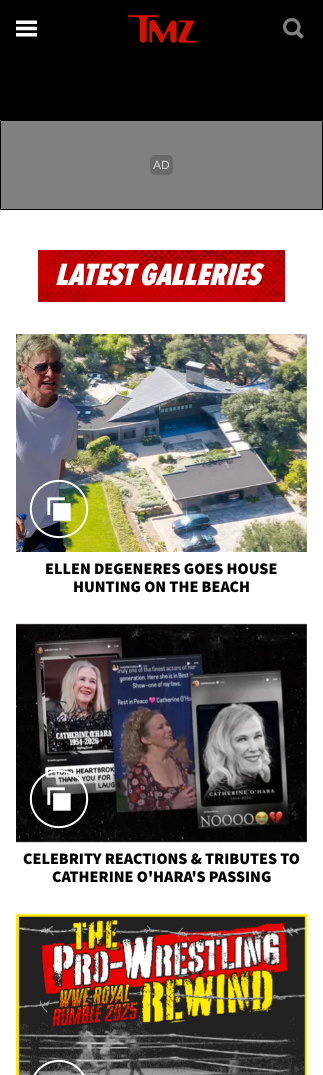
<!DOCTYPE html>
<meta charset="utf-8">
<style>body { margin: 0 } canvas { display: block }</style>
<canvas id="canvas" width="323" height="1075"></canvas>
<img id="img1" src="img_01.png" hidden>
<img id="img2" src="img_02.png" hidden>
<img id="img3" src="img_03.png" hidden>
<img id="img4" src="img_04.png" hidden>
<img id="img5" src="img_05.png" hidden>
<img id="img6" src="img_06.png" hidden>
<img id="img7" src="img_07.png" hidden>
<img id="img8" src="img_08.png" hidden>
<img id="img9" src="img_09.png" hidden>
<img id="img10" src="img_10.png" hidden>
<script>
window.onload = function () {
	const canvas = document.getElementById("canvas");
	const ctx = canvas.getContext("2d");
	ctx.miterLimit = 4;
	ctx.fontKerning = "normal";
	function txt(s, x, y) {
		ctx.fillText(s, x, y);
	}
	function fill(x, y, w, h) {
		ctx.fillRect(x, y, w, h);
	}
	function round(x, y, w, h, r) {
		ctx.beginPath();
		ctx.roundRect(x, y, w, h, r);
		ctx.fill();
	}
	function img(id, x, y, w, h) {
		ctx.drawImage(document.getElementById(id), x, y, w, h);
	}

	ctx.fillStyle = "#FFFFFF";
	fill(0, 0, 323, 1075);
	ctx.fillStyle = "#000000";
	fill(0, 0, 323, 120);
	img("img1", 16, 20, 21, 17);
	img("img2", 128, 15, 68, 28);
	img("img3", 283, 18, 21, 21);
	ctx.fillStyle = "#808080";
	ctx.beginPath();
	ctx.rect(0.5, 120.5, 322, 89);
	ctx.fill();
	ctx.strokeStyle = "#000000";
	ctx.stroke();
	ctx.fillStyle = "#696969";
	round(150, 155, 23, 20, 5);
	img("img4", 38, 250, 247, 52);
	img("img5", 16, 334, 291, 218);
	img("img6", 29, 479, 60, 60);
	img("img7", 16, 623, 291, 220);
	img("img8", 29, 769, 60, 60);
	img("img9", 16, 913, 291, 162);
	img("img10", 33, 1059, 52, 16);
	ctx.font = "12px Liberation Sans";
	ctx.fillStyle = "#D3D3D3";
	txt("AD", 153, 169);
	ctx.font = "italic 900 32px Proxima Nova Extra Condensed";
	ctx.fillStyle = "#FFFFFF";
	txt("LATEST GALLERIES", 55, 285);
	ctx.font = "900 16.1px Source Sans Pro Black";
	ctx.fillStyle = "#000000";
	txt("ELLEN DEGENERES GOES HOUSE", 45, 574);
	txt("HUNTING ON THE BEACH", 73, 592);
	txt("CELEBRITY REACTIONS & TRIBUTES TO", 23, 864);
	txt("CATHERINE O'HARA'S PASSING", 52, 882);
};
</script>
